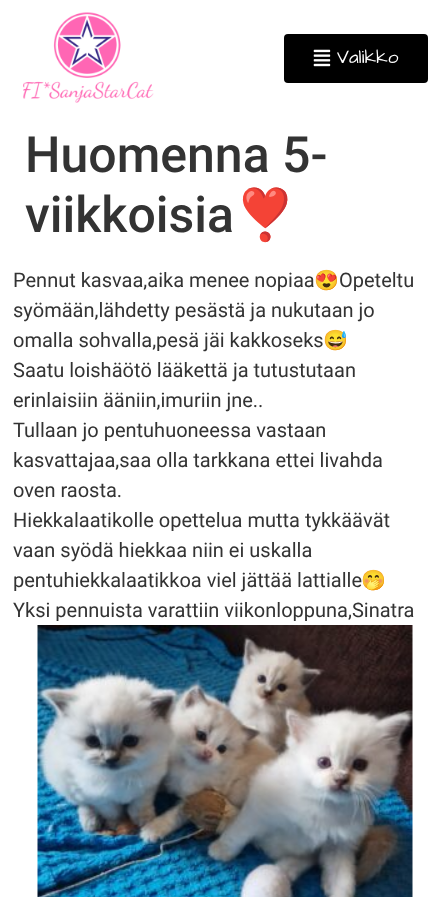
<!DOCTYPE html>
<meta charset="utf-8">
<style>body { margin: 0 } canvas { display: block }</style>
<canvas id="canvas" width="439" height="897"></canvas>
<img id="img1" src="img_01.png" hidden>
<img id="img2" src="img_02.png" hidden>
<img id="img3" src="img_03.png" hidden>
<script>
window.onload = function () {
	const canvas = document.getElementById("canvas");
	const ctx = canvas.getContext("2d");
	ctx.miterLimit = 4;
	ctx.fontKerning = "normal";
	function txt(s, x, y) {
		ctx.fillText(s, x, y);
	}
	function fill(x, y, w, h) {
		ctx.fillRect(x, y, w, h);
	}
	function round(x, y, w, h, r) {
		ctx.beginPath();
		ctx.roundRect(x, y, w, h, r);
		ctx.fill();
	}
	function img(id, x, y, w, h) {
		ctx.drawImage(document.getElementById(id), x, y, w, h);
	}

	ctx.fillStyle = "#FFFFFF";
	fill(0, 0, 439, 897);
	img("img1", 23, 12, 131, 91);
	ctx.fillStyle = "#000000";
	round(284, 34, 144, 49, 4);
	img("img2", 313, 49, 18, 18);
	img("img3", 37, 625, 376, 272);
	ctx.font = "19px Architects Daughter";
	ctx.fillStyle = "#FFFFFF";
	txt("Valikko", 337, 63);
	ctx.font = "500 50px Roboto";
	ctx.fillStyle = "#333333";
	txt("Huomenna 5-", 25, 172);
	txt("viikkoisia", 25, 232);
	ctx.font = "50px Noto Color Emoji";
	txt("❣️", 234, 232);
	ctx.font = "20px Roboto";
	txt("Pennut kasvaa,aika menee nopiaa", 13, 287);
	ctx.font = "20px Noto Color Emoji";
	txt("😍", 314, 287);
	ctx.font = "20px Roboto";
	txt("Opeteltu", 339, 287);
	txt("syömään,lähdetty pesästä ja nukutaan jo", 13, 317);
	txt("omalla sohvalla,pesä jäi kakkoseks", 13, 347);
	ctx.font = "20px Noto Color Emoji";
	txt("😅", 323, 347);
	ctx.font = "20px Roboto";
	txt("Saatu loishäötö lääkettä ja tutustutaan", 13, 377);
	txt("erinlaisiin ääniin,imuriin jne..", 13, 407);
	txt("Tullaan jo pentuhuoneessa vastaan", 13, 437);
	txt("kasvattajaa,saa olla tarkkana ettei livahda", 13, 467);
	txt("oven raosta.", 13, 497);
	txt("Hiekkalaatikolle opettelua mutta tykkäävät", 13, 527);
	txt("vaan syödä hiekkaa niin ei uskalla", 13, 557);
	txt("pentuhiekkalaatikkoa viel jättää lattialle", 13, 587);
	ctx.font = "20px Noto Color Emoji";
	txt("🤭", 361, 587);
	ctx.font = "20px Roboto";
	txt("Yksi pennuista varattiin viikonloppuna,Sinatra", 13, 617);
};
</script>
